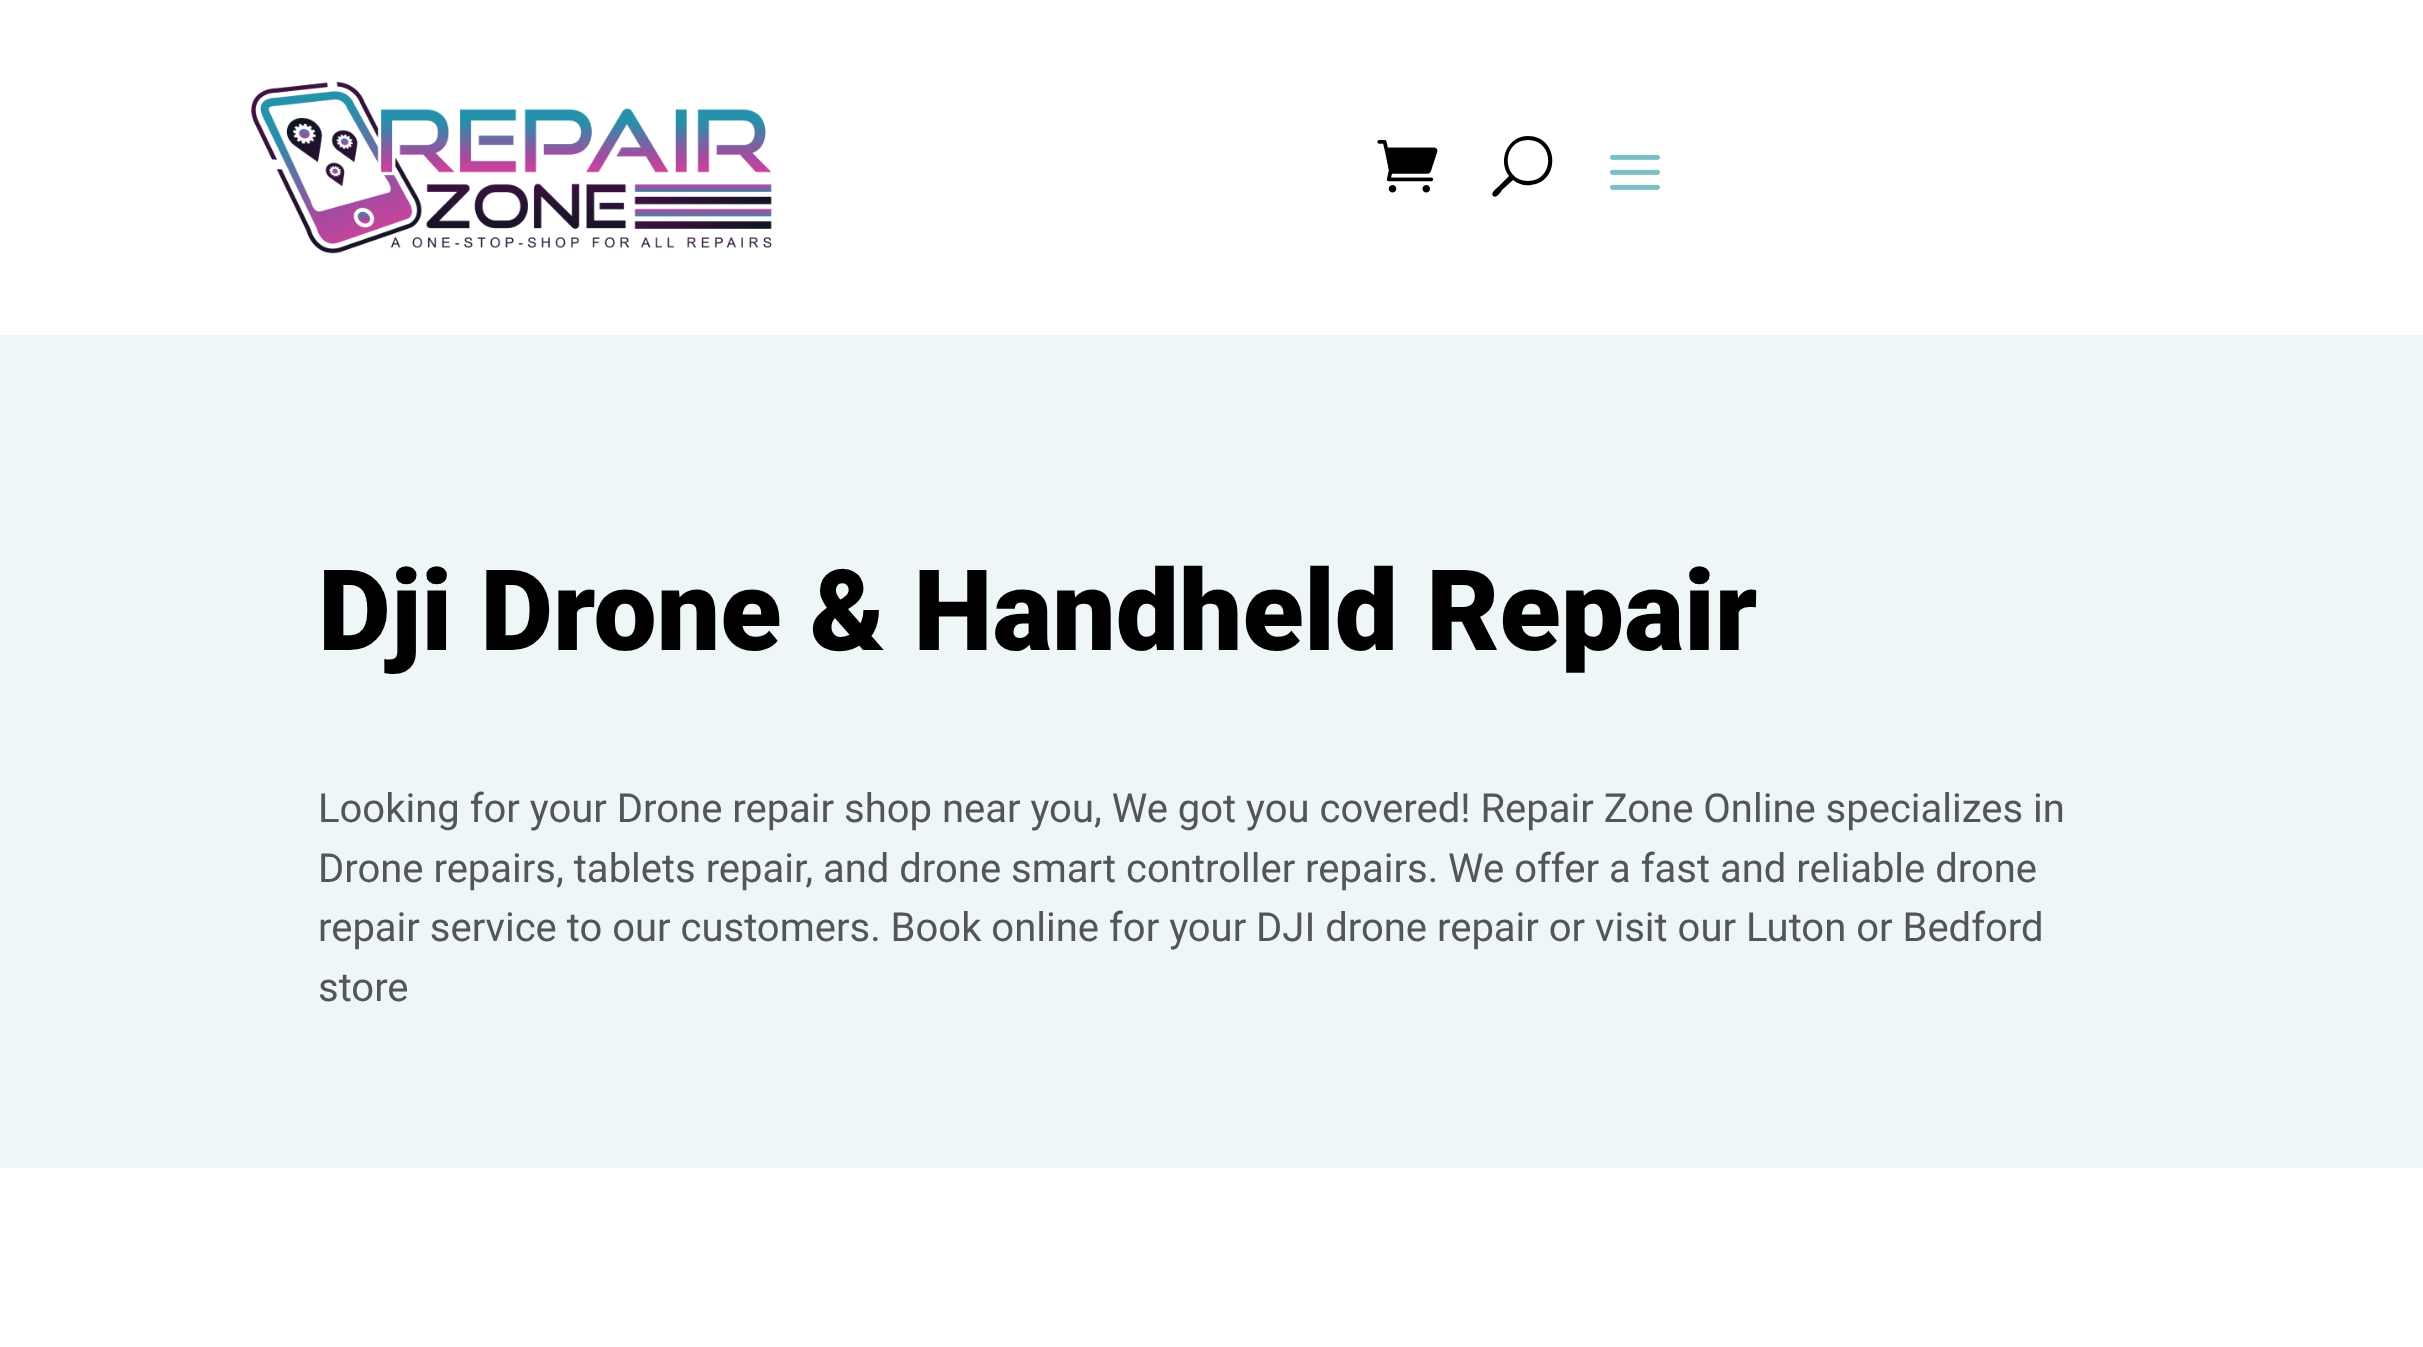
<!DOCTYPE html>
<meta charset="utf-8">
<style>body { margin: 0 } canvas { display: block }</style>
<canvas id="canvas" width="2423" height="1347"></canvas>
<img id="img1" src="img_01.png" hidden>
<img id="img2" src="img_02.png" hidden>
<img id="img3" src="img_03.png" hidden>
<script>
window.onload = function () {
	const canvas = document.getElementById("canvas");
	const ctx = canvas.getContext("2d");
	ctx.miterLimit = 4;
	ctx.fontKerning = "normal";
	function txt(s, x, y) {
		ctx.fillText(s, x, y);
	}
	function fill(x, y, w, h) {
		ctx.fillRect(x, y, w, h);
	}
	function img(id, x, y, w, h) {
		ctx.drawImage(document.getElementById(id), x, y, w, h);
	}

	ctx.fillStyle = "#FFFFFF";
	fill(0, 0, 2423, 1347);
	img("img1", 251, 81, 521, 173);
	img("img2", 1377, 140, 61, 53);
	ctx.fillStyle = "#000000";
	ctx.beginPath();
	ctx.moveTo(1528, 136);
	ctx.bezierCurveTo(1508, 136, 1497, 160, 1509, 176);
	ctx.lineTo(1498, 187);
	ctx.bezierCurveTo(1497, 188, 1490, 193, 1493, 196);
	ctx.bezierCurveTo(1496, 199, 1501, 192, 1502, 190);
	ctx.lineTo(1513, 180);
	ctx.bezierCurveTo(1518, 184, 1524, 186, 1531, 185);
	ctx.bezierCurveTo(1561, 182, 1559, 136, 1528, 136);
	ctx.closePath();
	ctx.moveTo(1528, 181);
	ctx.bezierCurveTo(1501, 181, 1501, 140, 1528, 140);
	ctx.bezierCurveTo(1555, 140, 1555, 181, 1528, 181);
	ctx.closePath();
	ctx.fill();
	img("img3", 1610, 154, 50, 36);
	ctx.fillStyle = "#EEF6F8";
	fill(0, 335, 2423, 833);
	ctx.font = "900 112.5px Roboto";
	ctx.fillStyle = "#000000";
	txt("Dji Drone & Handheld Repair", 318, 650);
	ctx.font = "40px Roboto";
	ctx.fillStyle = "#535657";
	txt("Looking for your Drone repair shop near you, We got you covered! Repair Zone Online specializes in", 318, 822);
	txt("Drone repairs, tablets repair, and drone smart controller repairs. We offer a fast and reliable drone", 318, 882);
	txt("repair service to our customers. Book online for your DJI drone repair or visit our Luton or Bedford", 318, 941);
	txt("store", 318, 1001);
};
</script>
